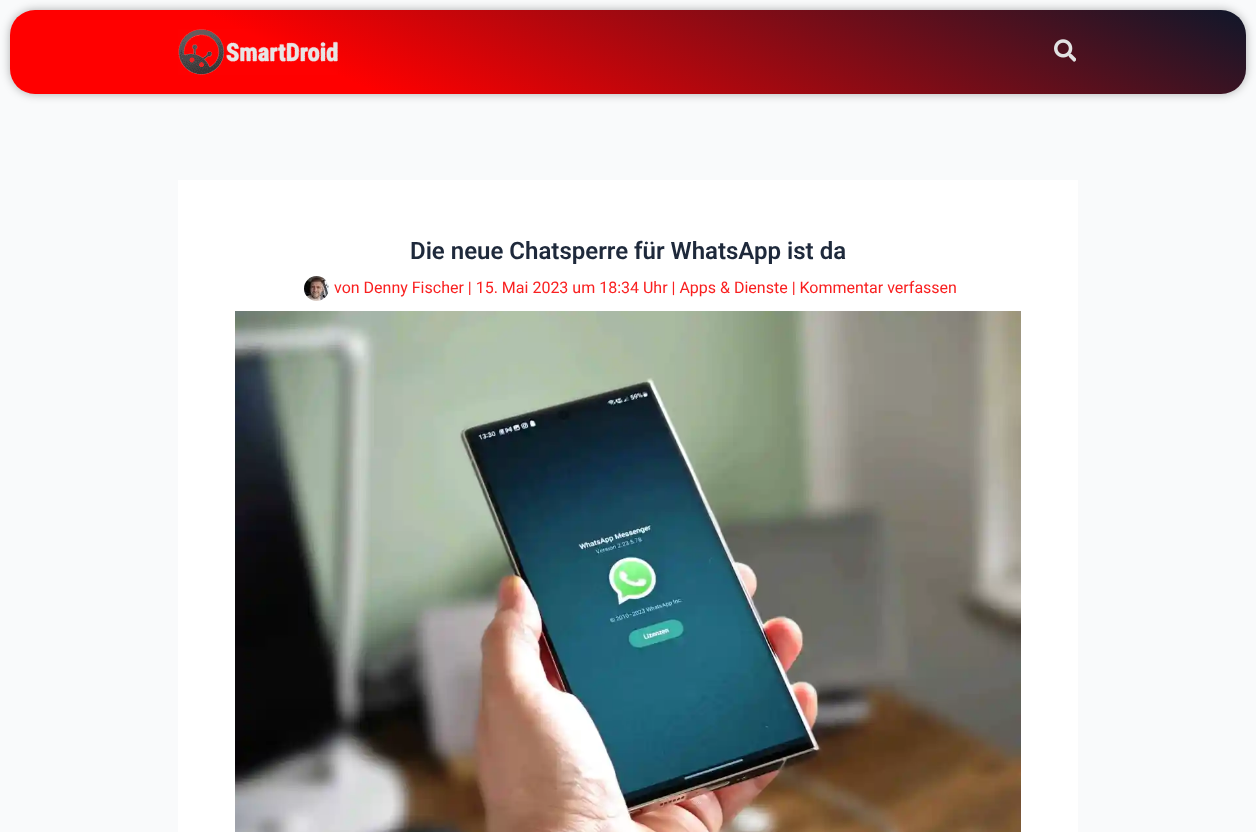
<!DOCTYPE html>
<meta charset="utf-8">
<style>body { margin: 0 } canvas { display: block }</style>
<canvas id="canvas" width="1256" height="832"></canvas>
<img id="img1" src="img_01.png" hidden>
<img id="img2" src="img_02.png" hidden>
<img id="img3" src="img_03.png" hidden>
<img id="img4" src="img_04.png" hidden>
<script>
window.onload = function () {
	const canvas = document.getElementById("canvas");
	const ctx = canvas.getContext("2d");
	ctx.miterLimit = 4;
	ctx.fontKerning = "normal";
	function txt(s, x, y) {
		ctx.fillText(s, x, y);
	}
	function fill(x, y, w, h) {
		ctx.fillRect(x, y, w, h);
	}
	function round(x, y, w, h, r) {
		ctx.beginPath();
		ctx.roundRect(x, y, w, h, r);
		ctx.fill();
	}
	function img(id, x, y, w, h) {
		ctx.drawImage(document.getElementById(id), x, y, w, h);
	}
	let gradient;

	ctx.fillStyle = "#F9FAFB";
	fill(0, 0, 1256, 832);
	ctx.fillStyle = "rgba(0, 0, 0, 0.3)";
	ctx.filter = "blur(5px)";
	ctx.beginPath();
	ctx.roundRect(10, 10, 1236, 84, 25);
	ctx.fill();
	ctx.filter = "none";
	gradient = ctx.createLinearGradient(502, 323, 754, -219);
	gradient.addColorStop(0.26, "#FF0000");
	gradient.addColorStop(1, "#0F172A");
	ctx.fillStyle = gradient;
	round(10, 10, 1236, 84, 25);
	img("img1", 178, 29, 160, 46);
	img("img2", 1054, 39, 22, 23);
	ctx.fillStyle = "#FFFFFF";
	fill(178, 180, 900, 652);
	img("img3", 304, 276, 25, 25);
	img("img4", 235, 311, 786, 521);
	ctx.font = "600 24px Roboto";
	ctx.fillStyle = "#1E293B";
	txt("Die neue Chatsperre für WhatsApp ist da", 410, 259);
	ctx.font = "16px Roboto";
	ctx.fillStyle = "#F92020";
	txt("von Denny Fischer | 15. Mai 2023 um 18:34 Uhr | Apps & Dienste | Kommentar verfassen", 334, 293);
};
</script>
